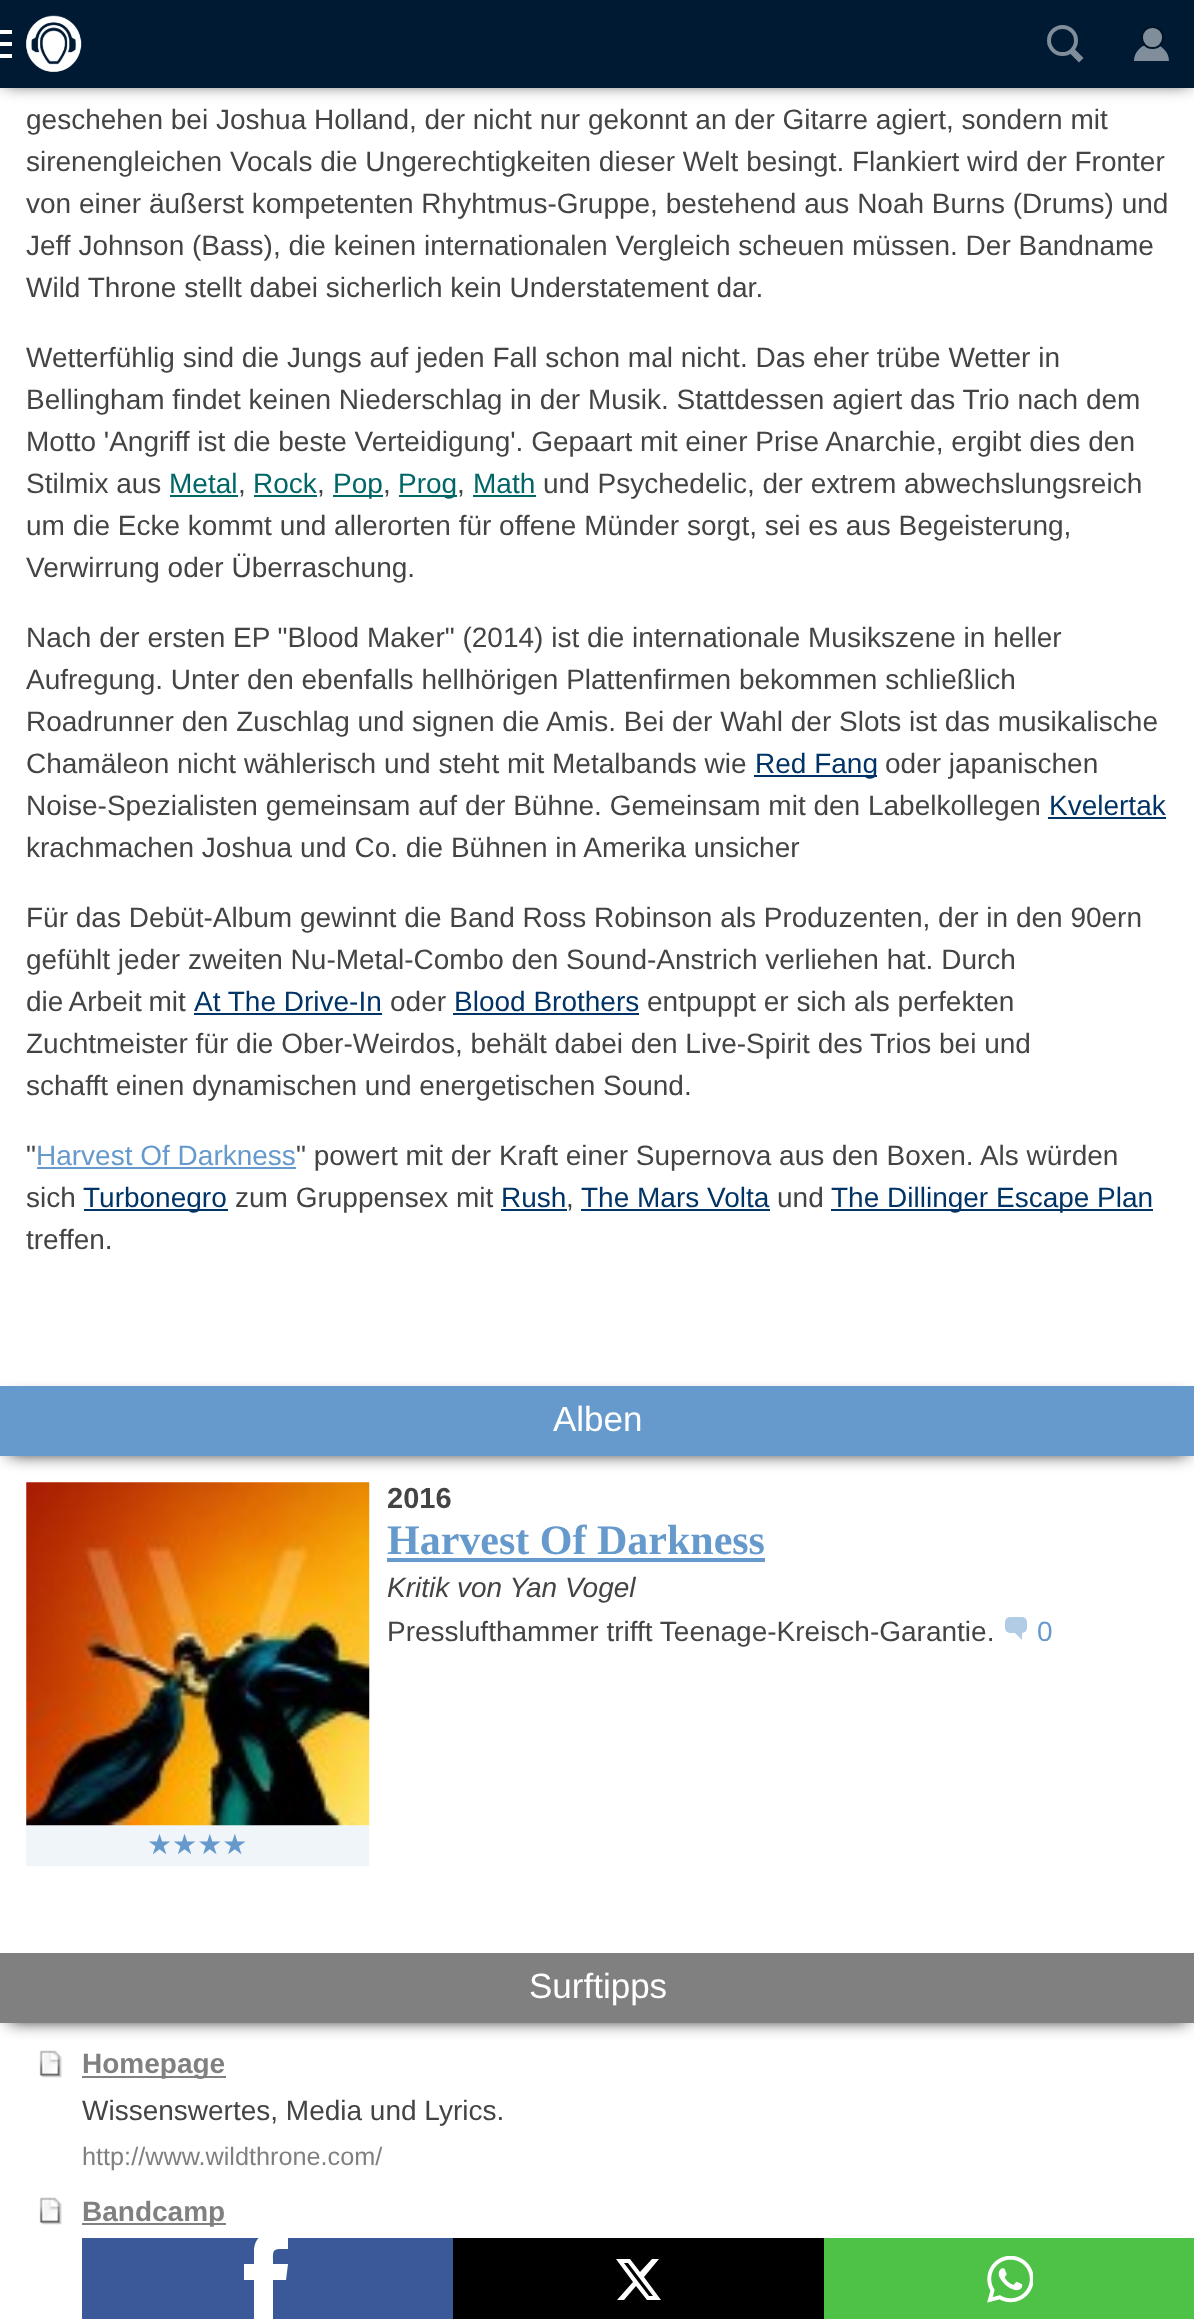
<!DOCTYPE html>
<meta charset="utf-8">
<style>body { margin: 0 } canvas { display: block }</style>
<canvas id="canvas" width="1194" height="2319"></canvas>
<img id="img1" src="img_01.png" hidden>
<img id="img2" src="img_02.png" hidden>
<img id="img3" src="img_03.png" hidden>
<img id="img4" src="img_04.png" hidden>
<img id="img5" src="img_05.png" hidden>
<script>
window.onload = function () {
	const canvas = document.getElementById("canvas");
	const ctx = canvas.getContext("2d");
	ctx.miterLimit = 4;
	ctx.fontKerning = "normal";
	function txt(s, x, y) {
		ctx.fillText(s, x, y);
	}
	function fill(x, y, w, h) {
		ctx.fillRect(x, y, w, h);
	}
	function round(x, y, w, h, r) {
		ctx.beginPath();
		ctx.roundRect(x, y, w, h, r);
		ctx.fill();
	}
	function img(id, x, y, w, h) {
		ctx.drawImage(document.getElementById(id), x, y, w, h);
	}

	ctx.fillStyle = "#FFFFFF";
	fill(0, 0, 1194, 2319);
	ctx.fillStyle = "#000000";
	ctx.filter = "blur(9px)";
	ctx.beginPath();
	ctx.rect(5, 5, 1185, 77);
	ctx.fill();
	ctx.filter = "none";
	ctx.fillStyle = "#001A34";
	fill(0, 0, 1194, 88);
	img("img1", 26, 15, 56, 57);
	ctx.fillStyle = "#FFFFFF";
	fill(0, 30, 12, 4);
	fill(0, 54, 12, 4);
	fill(0, 42, 12, 4);
	ctx.fillStyle = "#808D9A";
	ctx.beginPath();
	ctx.moveTo(1083.5, 58);
	ctx.lineTo(1079, 62.5);
	ctx.lineTo(1069, 52.5);
	ctx.lineTo(1073.5, 48);
	ctx.closePath();
	ctx.fill();
	ctx.beginPath();
	ctx.arc(1062.5, 40.5, 13.5, 0, Math.PI * 2);
	ctx.strokeStyle = "#808D9A";
	ctx.lineWidth = 4;
	ctx.stroke();
	ctx.beginPath();
	ctx.moveTo(1151.5, 44);
	ctx.bezierCurveTo(1161, 44, 1169, 51.5, 1169, 61);
	ctx.lineTo(1134, 61);
	ctx.bezierCurveTo(1134, 51.5, 1142, 44, 1151.5, 44);
	ctx.closePath();
	ctx.moveTo(1151.5, 61);
	ctx.closePath();
	ctx.fill("evenodd");
	ctx.beginPath();
	ctx.roundRect(1142, 27, 21, 21, 10);
	ctx.strokeStyle = "#001427";
	ctx.lineWidth = 2;
	ctx.stroke();
	round(1143, 28, 19, 19, 9);
	ctx.fillStyle = "#006666";
	fill(170, 495, 68, 2);
	fill(254, 495, 63, 2);
	fill(333, 495, 50, 2);
	fill(399, 495, 58, 2);
	fill(473, 495, 63, 2);
	ctx.fillStyle = "#003366";
	fill(754, 775, 123, 2);
	fill(1048, 817, 118, 2);
	fill(194, 1013, 188, 2);
	fill(453, 1013, 186, 2);
	ctx.fillStyle = "#6699CC";
	fill(37, 1167, 259, 2);
	ctx.fillStyle = "#003366";
	fill(84, 1209, 144, 2);
	fill(501, 1209, 66, 2);
	fill(581, 1209, 189, 2);
	fill(831, 1209, 322, 2);
	ctx.fillStyle = "#000000";
	ctx.filter = "blur(9px)";
	ctx.beginPath();
	ctx.rect(9, 1400, 1178, 53);
	ctx.fill();
	ctx.filter = "none";
	ctx.fillStyle = "#6699CC";
	fill(0, 1386, 1194, 70);
	fill(387, 1558, 378, 4);
	ctx.fillStyle = "#B3CCE6";
	round(1005, 1617, 22, 16, 5);
	ctx.beginPath();
	ctx.moveTo(1022, 1633);
	ctx.lineTo(1022, 1640);
	ctx.lineTo(1015, 1633);
	ctx.closePath();
	ctx.fill();
	ctx.fillStyle = "#F0F5FA";
	fill(26, 1825, 343, 41);
	img("img2", 26, 1482, 344, 344);
	ctx.save();
	ctx.beginPath();
	ctx.rect(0, 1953, 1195, 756);
	ctx.clip();
	ctx.fillStyle = "#000000";
	ctx.filter = "blur(9px)";
	ctx.beginPath();
	ctx.rect(9, 1967, 1178, 53);
	ctx.fill();
	ctx.filter = "none";
	ctx.restore();
	ctx.fillStyle = "#808080";
	fill(0, 1953, 1194, 70);
	img("img3", 39, 2050, 23, 28);
	fill(82, 2076, 144, 2);
	img("img4", 39, 2197, 23, 28);
	fill(82, 2223, 144, 2);
	ctx.fillStyle = "#3B5998";
	fill(82, 2238, 371, 81);
	ctx.save();
	ctx.beginPath();
	ctx.rect(208, 2238, 119, 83);
	ctx.clip();
	ctx.fillStyle = "#FFFFFF";
	ctx.beginPath();
	ctx.moveTo(273, 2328);
	ctx.lineTo(273, 2280);
	ctx.lineTo(286, 2280);
	ctx.lineTo(288, 2264);
	ctx.lineTo(273, 2264);
	ctx.bezierCurveTo(273, 2248, 272, 2249, 288, 2249);
	ctx.lineTo(288, 2233);
	ctx.bezierCurveTo(274, 2233, 256, 2230, 254, 2249);
	ctx.lineTo(254, 2264);
	ctx.lineTo(244, 2264);
	ctx.lineTo(244, 2280);
	ctx.lineTo(254, 2280);
	ctx.lineTo(254, 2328);
	ctx.closePath();
	ctx.fill("evenodd");
	ctx.restore();
	ctx.fillStyle = "#000000";
	fill(453, 2238, 371, 81);
	ctx.fillStyle = "#FFFFFF";
	ctx.beginPath();
	ctx.moveTo(652, 2259);
	ctx.lineTo(659, 2259);
	ctx.lineTo(644, 2277);
	ctx.lineTo(661, 2300);
	ctx.lineTo(647, 2300);
	ctx.lineTo(636, 2286);
	ctx.lineTo(624, 2300);
	ctx.lineTo(617, 2300);
	ctx.lineTo(633, 2282);
	ctx.lineTo(616, 2259);
	ctx.lineTo(630, 2259);
	ctx.lineTo(640, 2272);
	ctx.closePath();
	ctx.moveTo(649, 2296);
	ctx.lineTo(653, 2296);
	ctx.lineTo(628, 2263);
	ctx.lineTo(624, 2263);
	ctx.closePath();
	ctx.fill();
	ctx.fillStyle = "#4DC247";
	fill(824, 2238, 370, 81);
	img("img5", 987, 2256, 46, 47);
	ctx.font = "28px Liberation Sans";
	ctx.fillStyle = "#444444";
	txt("geschehen bei Joshua Holland, der nicht nur gekonnt an der Gitarre agiert, sondern mit", 26, 129);
	txt("sirenengleichen Vocals die Ungerechtigkeiten dieser Welt besingt. Flankiert wird der Fronter", 26, 171);
	txt("von einer äußerst kompetenten Rhyhtmus-Gruppe, bestehend aus Noah Burns (Drums) und", 26, 213);
	txt("Jeff Johnson (Bass), die keinen internationalen Vergleich scheuen müssen. Der Bandname", 26, 255);
	txt("Wild Throne stellt dabei sicherlich kein Understatement dar.", 26, 297);
	txt("Wetterfühlig sind die Jungs auf jeden Fall schon mal nicht. Das eher trübe Wetter in", 26, 367);
	txt("Bellingham findet keinen Niederschlag in der Musik. Stattdessen agiert das Trio nach dem", 26, 409);
	txt("Motto 'Angriff ist die beste Verteidigung'. Gepaart mit einer Prise Anarchie, ergibt dies den", 26, 451);
	txt("Stilmix aus", 26, 493);
	ctx.fillStyle = "#006666";
	txt("Metal", 169, 493);
	ctx.fillStyle = "#444444";
	txt(",", 238, 493);
	ctx.fillStyle = "#006666";
	txt("Rock", 253, 493);
	ctx.fillStyle = "#444444";
	txt(",", 317, 493);
	ctx.fillStyle = "#006666";
	txt("Pop", 333, 493);
	ctx.fillStyle = "#444444";
	txt(",", 383, 493);
	ctx.fillStyle = "#006666";
	txt("Prog", 398, 493);
	ctx.fillStyle = "#444444";
	txt(",", 457, 493);
	ctx.fillStyle = "#006666";
	txt("Math", 473, 493);
	ctx.fillStyle = "#444444";
	txt("und Psychedelic, der extrem abwechslungsreich", 543, 493);
	txt("um die Ecke kommt und allerorten für offene Münder sorgt, sei es aus Begeisterung,", 26, 535);
	txt("Verwirrung oder Überraschung.", 26, 577);
	txt("Nach der ersten EP \"Blood Maker\" (2014) ist die internationale Musikszene in heller", 26, 647);
	txt("Aufregung. Unter den ebenfalls hellhörigen Plattenfirmen bekommen schließlich", 26, 689);
	txt("Roadrunner den Zuschlag und signen die Amis. Bei der Wahl der Slots ist das musikalische", 26, 731);
	txt("Chamäleon nicht wählerisch und steht mit Metalbands wie", 26, 773);
	ctx.fillStyle = "#003366";
	txt("Red Fang", 755, 773);
	ctx.fillStyle = "#444444";
	txt("oder japanischen", 885, 773);
	txt("Noise-Spezialisten gemeinsam auf der Bühne. Gemeinsam mit den Labelkollegen", 26, 815);
	ctx.fillStyle = "#003366";
	txt("Kvelertak", 1049, 815);
	ctx.fillStyle = "#444444";
	txt("krachmachen Joshua und Co. die Bühnen in Amerika unsicher", 26, 857);
	txt("Für das Debüt-Album gewinnt die Band Ross Robinson als Produzenten, der in den 90ern", 26, 927);
	txt("gefühlt jeder zweiten Nu-Metal-Combo den Sound-Anstrich verliehen hat. Durch", 26, 969);
	ctx.wordSpacing = "-1px";
	txt("die Arbeit mit", 26, 1011);
	ctx.wordSpacing = "0px";
	ctx.fillStyle = "#003366";
	txt("At The Drive-In", 194, 1011);
	ctx.fillStyle = "#444444";
	txt("oder", 390, 1011);
	ctx.fillStyle = "#003366";
	txt("Blood Brothers", 454, 1011);
	ctx.fillStyle = "#444444";
	txt("entpuppt er sich als perfekten", 647, 1011);
	txt("Zuchtmeister für die Ober-Weirdos, behält dabei den Live-Spirit des Trios bei und", 26, 1053);
	txt("schafft einen dynamischen und energetischen Sound.", 26, 1095);
	txt("\"", 26, 1165);
	ctx.fillStyle = "#6699CC";
	txt("Harvest Of Darkness", 36, 1165);
	ctx.fillStyle = "#444444";
	txt("\" powert mit der Kraft einer Supernova aus den Boxen. Als würden", 296, 1165);
	txt("sich", 26, 1207);
	ctx.fillStyle = "#003366";
	txt("Turbonegro", 83, 1207);
	ctx.fillStyle = "#444444";
	txt("zum Gruppensex mit", 235, 1207);
	ctx.fillStyle = "#003366";
	txt("Rush", 501, 1207);
	ctx.fillStyle = "#444444";
	txt(",", 566, 1207);
	ctx.fillStyle = "#003366";
	txt("The Mars Volta", 581, 1207);
	ctx.fillStyle = "#444444";
	txt("und", 777, 1207);
	ctx.fillStyle = "#003366";
	txt("The Dillinger Escape Plan", 831, 1207);
	ctx.fillStyle = "#444444";
	txt("treffen.", 26, 1249);
	ctx.font = "35px Liberation Sans";
	ctx.fillStyle = "#FFFFFF";
	txt("Alben", 553, 1431);
	ctx.font = "bold 29px Liberation Sans";
	ctx.fillStyle = "#444444";
	txt("2016", 387, 1508);
	ctx.font = "bold 42px Liberation Serif";
	ctx.fillStyle = "#6699CC";
	txt("Harvest Of Darkness", 387, 1554);
	ctx.font = "italic 28px Liberation Sans";
	ctx.fillStyle = "#444444";
	txt("Kritik von Yan Vogel", 387, 1597);
	ctx.font = "28px Liberation Sans";
	txt("Presslufthammer trifft Teenage-Kreisch-Garantie.", 387, 1641);
	ctx.fillStyle = "#6699CC";
	txt("0", 1037, 1641);
	ctx.font = "28px DejaVu Sans";
	txt("★★★★", 147, 1854);
	ctx.font = "35px Liberation Sans";
	ctx.fillStyle = "#FFFFFF";
	txt("Surftipps", 529, 1998);
	ctx.font = "bold 28px Liberation Sans";
	ctx.fillStyle = "#808080";
	txt("Homepage", 82, 2073);
	ctx.font = "28px Liberation Sans";
	ctx.fillStyle = "#444444";
	txt("Wissenswertes, Media und Lyrics.", 82, 2120);
	ctx.font = "25.25px Liberation Sans";
	ctx.fillStyle = "#808080";
	txt("http://www.wildthrone.com/", 82, 2165);
	ctx.font = "bold 28px Liberation Sans";
	txt("Bandcamp", 82, 2221);
};
</script>
